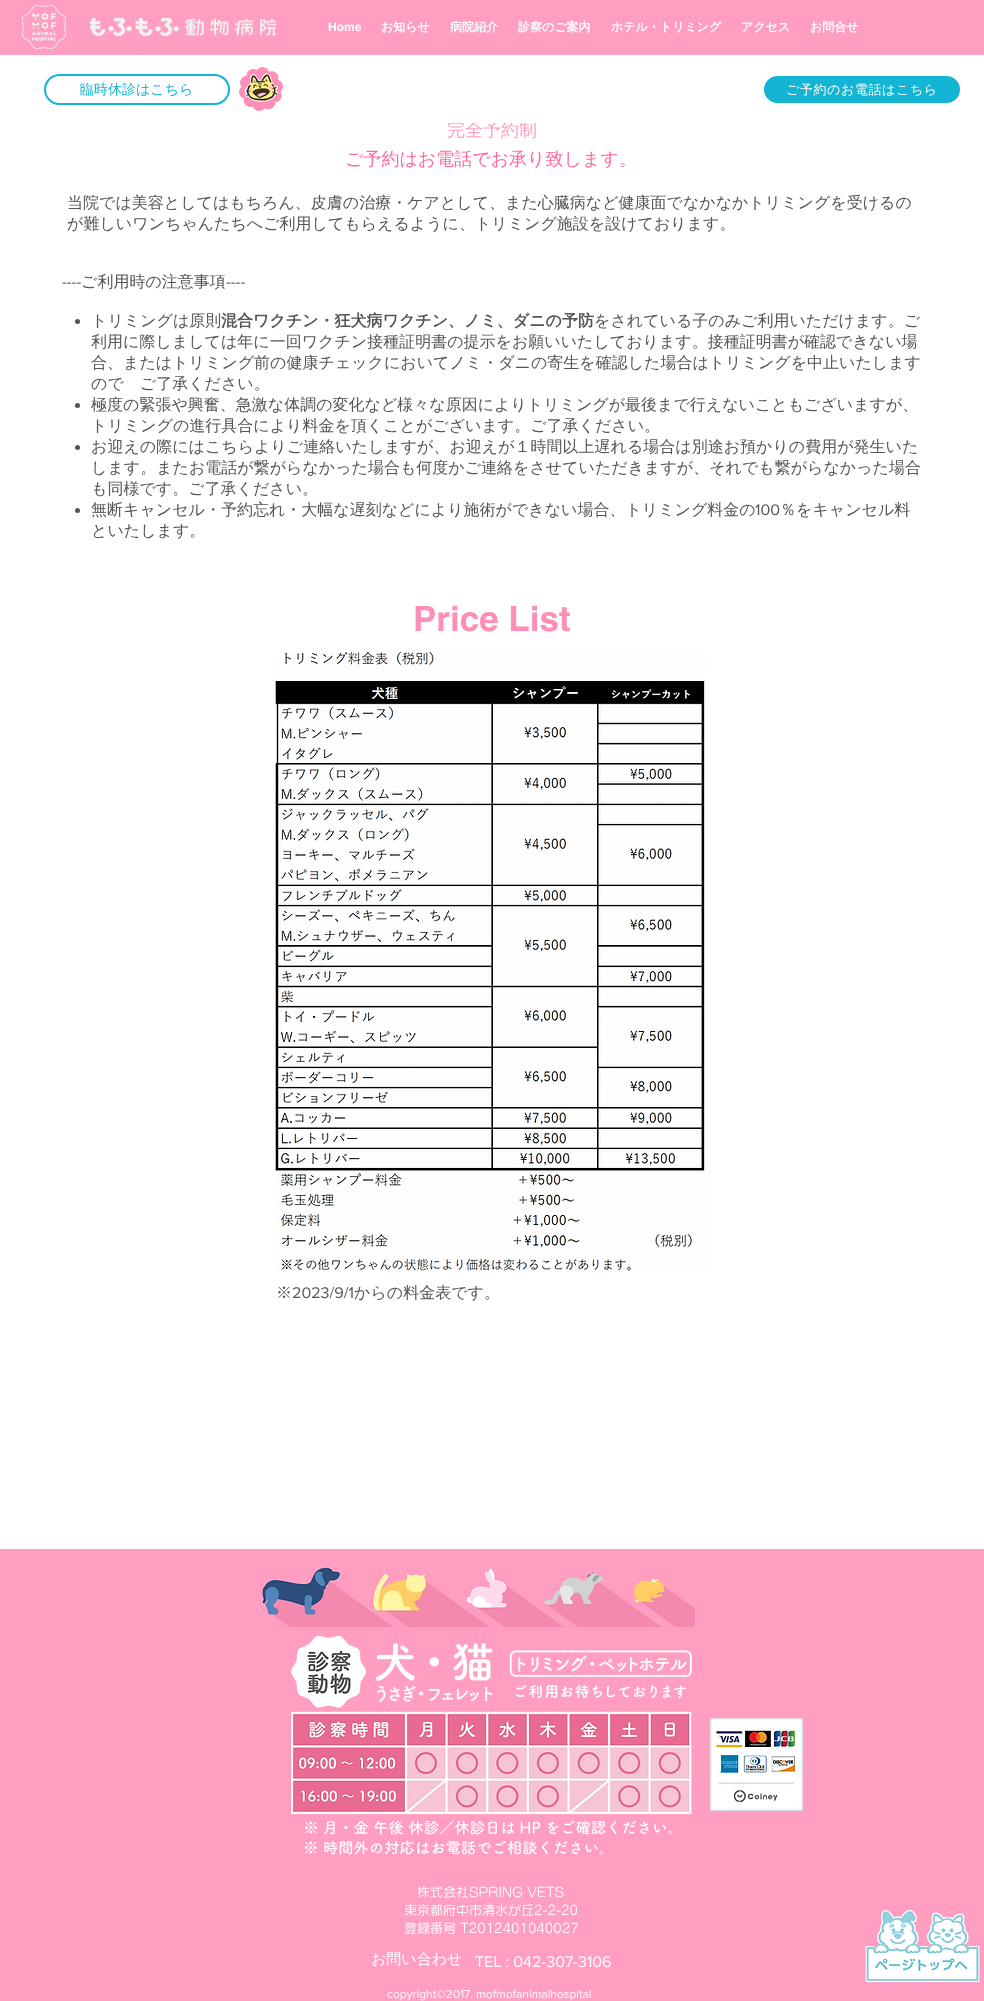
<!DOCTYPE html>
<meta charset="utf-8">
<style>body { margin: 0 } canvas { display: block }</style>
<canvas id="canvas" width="984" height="2001"></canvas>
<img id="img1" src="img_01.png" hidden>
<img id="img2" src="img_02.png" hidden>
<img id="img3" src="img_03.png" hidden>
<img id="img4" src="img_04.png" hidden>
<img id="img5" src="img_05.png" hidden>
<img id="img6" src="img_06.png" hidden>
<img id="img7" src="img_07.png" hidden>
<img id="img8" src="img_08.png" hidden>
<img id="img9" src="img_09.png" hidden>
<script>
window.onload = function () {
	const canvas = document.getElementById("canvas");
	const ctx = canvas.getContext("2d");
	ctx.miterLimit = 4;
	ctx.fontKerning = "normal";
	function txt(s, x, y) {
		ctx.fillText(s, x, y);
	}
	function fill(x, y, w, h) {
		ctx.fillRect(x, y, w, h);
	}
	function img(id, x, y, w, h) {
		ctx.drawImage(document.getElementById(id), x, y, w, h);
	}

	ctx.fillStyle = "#FFFFFF";
	fill(0, 0, 984, 2001);
	ctx.fillStyle = "#FF9EC0";
	fill(0, 0, 984, 55);
	img("img1", 22, 5, 44, 44);
	img("img2", 90, 18, 186, 18);
	ctx.beginPath();
	ctx.roundRect(45, 75, 184, 29, 14.5);
	ctx.strokeStyle = "#13B4D4";
	ctx.lineWidth = 2;
	ctx.stroke();
	img("img3", 239, 67, 44, 44);
	img("img4", 244, 73, 35, 29);
	ctx.fillStyle = "#13B4D4";
	ctx.beginPath();
	ctx.roundRect(763, 75, 198, 29, 14.5);
	ctx.fill();
	ctx.strokeStyle = "#FFFFFF";
	ctx.stroke();
	ctx.fillStyle = "#555555";
	ctx.beginPath();
	ctx.arc(77.5, 321.5, 2.5, 0, Math.PI * 2);
	ctx.fill();
	ctx.beginPath();
	ctx.arc(77.5, 405.5, 2.5, 0, Math.PI * 2);
	ctx.fill();
	ctx.beginPath();
	ctx.arc(77.5, 447.5, 2.5, 0, Math.PI * 2);
	ctx.fill();
	ctx.beginPath();
	ctx.arc(77.5, 510.5, 2.5, 0, Math.PI * 2);
	ctx.fill();
	img("img5", 274, 651, 433, 621);
	ctx.fillStyle = "#FF9EC0";
	fill(0, 1549, 984, 452);
	img("img6", 262, 1567, 433, 60);
	img("img7", 291, 1636, 401, 219);
	img("img8", 710, 1718, 93, 93);
	img("img9", 865, 1910, 115, 72);
	ctx.font = "bold 12px Liberation Sans";
	ctx.fillStyle = "#FFFFFF";
	txt("Home", 328, 31);
	ctx.font = "bold 12px WenQuanYi Zen Hei";
	txt("お知らせ", 381, 31);
	txt("病院紹介", 450, 31);
	txt("診察のご案内", 518, 31);
	txt("ホテル・トリミング", 611, 31);
	txt("アクセス", 741, 31);
	txt("お問合せ", 810, 31);
	ctx.font = "500 14px WenQuanYi Zen Hei";
	ctx.fillStyle = "#13B4D4";
	txt("臨時休診はこちら", 80, 94);
	ctx.letterSpacing = "0.6px";
	ctx.font = "500 13px WenQuanYi Zen Hei";
	ctx.fillStyle = "#FFFFFF";
	txt("ご予約のお電話はこちら", 786, 94);
	ctx.letterSpacing = "0px";
	ctx.font = "500 18px WenQuanYi Zen Hei";
	ctx.fillStyle = "#FF9EC0";
	txt("完全予約制", 447, 136);
	ctx.fillStyle = "#FFFFFF";
	fill(448, 120, 88, 3);
	ctx.fillStyle = "#FF699D";
	txt("ご予約はお電話でお承り致します。", 345, 165);
	ctx.font = "500 16px WenQuanYi Zen Hei";
	ctx.fillStyle = "#555555";
	txt("当院では美容としてはもちろん、皮膚の治療・ケアとして、また心臓病など健康面でなかなかトリミングを受けるの", 67, 208);
	txt("が難しいワンちゃんたちへご利用してもらえるように、トリミング施設を設けております。", 67, 229);
	ctx.font = "16px 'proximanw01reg'";
	txt("----", 62, 287);
	ctx.font = "500 16px WenQuanYi Zen Hei";
	txt("ご利用時の注意事項", 81, 287);
	ctx.font = "16px 'proximanw01reg'";
	txt("----", 226, 287);
	ctx.font = "500 16px WenQuanYi Zen Hei";
	txt("トリミングは原則", 91, 326);
	ctx.font = "bold 16px WenQuanYi Zen Hei";
	txt("混合ワクチン・狂犬病ワクチン、ノミ、ダニの予防", 221, 326);
	ctx.font = "500 16px WenQuanYi Zen Hei";
	txt("をされている子のみご利用いただけます。ご", 594, 326);
	txt("利用に際しましては年に一回ワクチン接種証明書の提示をお願いいたしております。接種証明書が確認できない場", 91, 347);
	txt("合、またはトリミング前の健康チェックにおいてノミ・ダニの寄生を確認した場合はトリミングを中止いたします", 91, 368);
	txt("ので　ご了承ください。", 91, 389);
	txt("極度の緊張や興奮、急激な体調の変化など様々な原因によりトリミングが最後まで行えないこともございますが、", 91, 410);
	txt("トリミングの進行具合により料金を頂くことがございます。ご了承ください。", 91, 431);
	txt("お迎えの際にはこちらよりご連絡いたしますが、お迎えが１時間以上遅れる場合は別途お預かりの費用が発生いた", 91, 452);
	txt("します。またお電話が繋がらなかった場合も何度かご連絡をさせていただきますが、それでも繋がらなかった場合", 91, 473);
	txt("も同様です。ご了承ください。", 91, 494);
	txt("無断キャンセル・予約忘れ・大幅な遅刻などにより施術ができない場合、トリミング料金の", 91, 515);
	ctx.font = "16px 'proximanw01reg'";
	txt("100", 755, 515);
	ctx.font = "500 16px WenQuanYi Zen Hei";
	txt("％をキャンセル料", 780, 515);
	txt("といたします。", 91, 536);
	ctx.font = "bold 35px helvetica";
	ctx.fillStyle = "#FF8FB6";
	txt("Price List", 413, 631);
	ctx.font = "500 16px WenQuanYi Zen Hei";
	ctx.fillStyle = "#555555";
	txt("※", 276, 1298);
	ctx.font = "16px 'proximanw01reg'";
	txt("2023/9/1", 292, 1298);
	ctx.font = "500 16px WenQuanYi Zen Hei";
	txt("からの料金表です。", 354, 1298);
	ctx.font = "500 13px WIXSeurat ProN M";
	ctx.fillStyle = "#FFFFFF";
	txt("株式会社SPRING VETS", 417, 1897);
	txt("東京都府中市清水が丘2-2-20", 404, 1915);
	txt("登録番号 T2012401040027", 404, 1933);
	ctx.font = "500 15px WenQuanYi Zen Hei";
	txt("お問い合わせ", 371, 1964);
	ctx.font = "16px 'proximanw01reg'";
	txt("TEL : 042-307-3106", 475, 1967);
	ctx.font = "12px 'proximanw01reg'";
	txt("copyright©︎2017. mofmofanimalhospital", 387, 1998);
};
</script>
